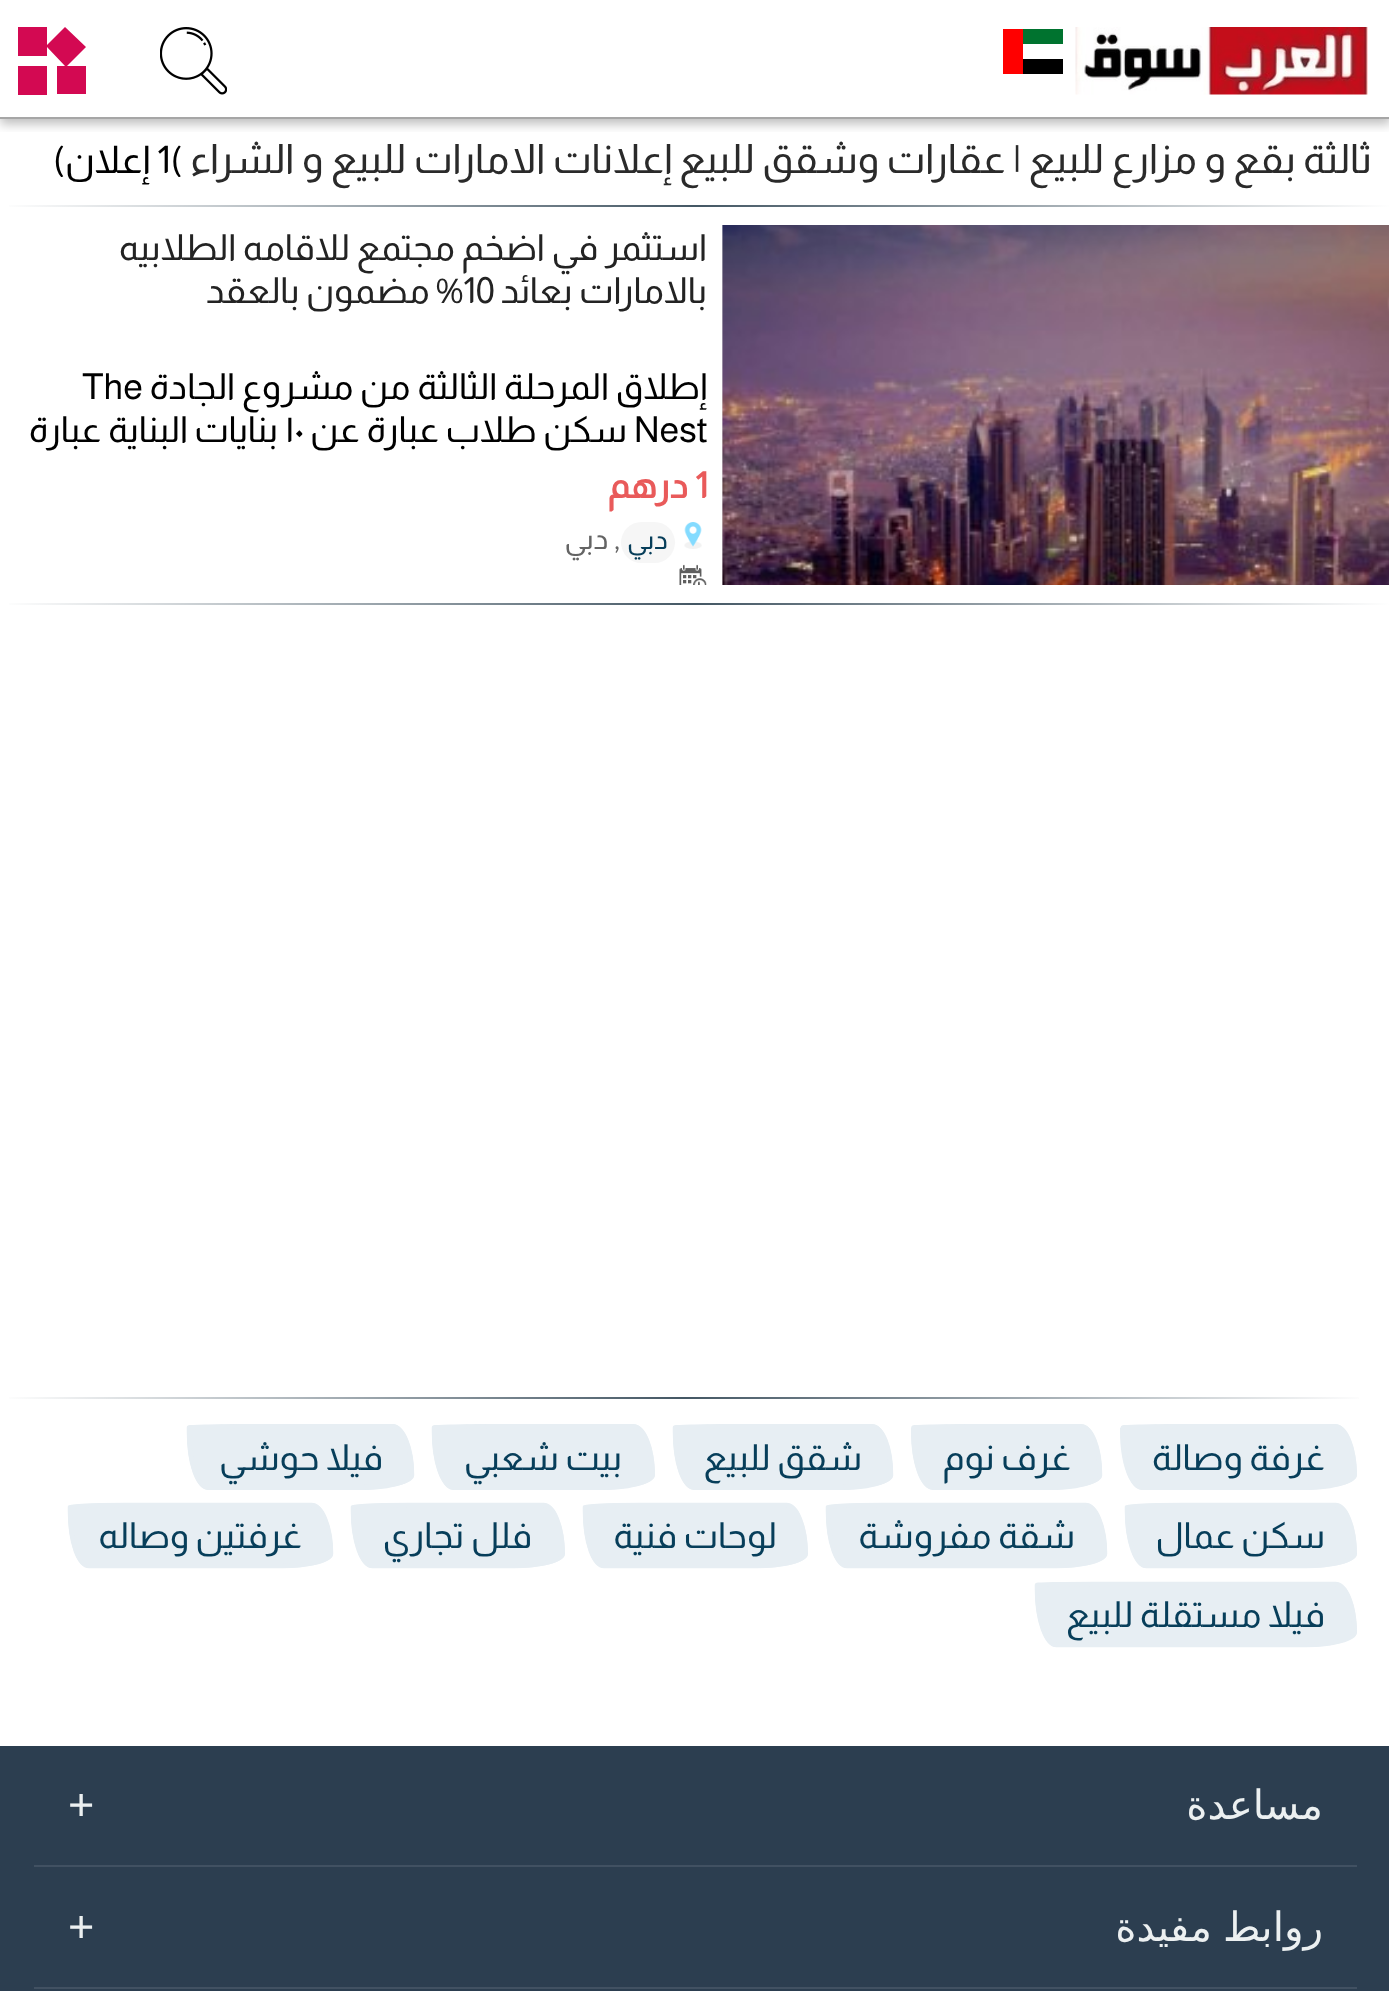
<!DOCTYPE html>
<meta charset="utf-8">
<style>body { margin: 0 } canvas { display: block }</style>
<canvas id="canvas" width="1389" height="1991"></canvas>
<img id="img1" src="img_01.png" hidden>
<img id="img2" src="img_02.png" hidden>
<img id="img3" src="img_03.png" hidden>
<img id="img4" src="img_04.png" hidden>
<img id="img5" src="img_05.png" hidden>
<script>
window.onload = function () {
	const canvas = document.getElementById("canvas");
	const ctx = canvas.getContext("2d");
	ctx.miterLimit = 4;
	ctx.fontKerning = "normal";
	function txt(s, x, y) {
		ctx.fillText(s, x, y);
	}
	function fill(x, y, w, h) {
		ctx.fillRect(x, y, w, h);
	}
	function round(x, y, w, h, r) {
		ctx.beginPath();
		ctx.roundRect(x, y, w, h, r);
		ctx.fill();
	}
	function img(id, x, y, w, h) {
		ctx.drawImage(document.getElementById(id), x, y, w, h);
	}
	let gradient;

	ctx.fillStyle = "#FFFFFF";
	fill(0, 0, 1389, 1991);
	ctx.save();
	ctx.beginPath();
	ctx.rect(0, 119, 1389, 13);
	ctx.clip();
	ctx.fillStyle = "rgba(0, 0, 0, 0.26)";
	ctx.filter = "blur(5.5px)";
	ctx.beginPath();
	ctx.rect(0, 5, 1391, 119);
	ctx.fill();
	ctx.filter = "none";
	ctx.restore();
	ctx.fillStyle = "#A6A6A6";
	fill(0, 117, 1389, 2);
	img("img1", 1075, 27, 293, 68);
	ctx.fillStyle = "#00732F";
	fill(1023, 29, 40, 15);
	ctx.fillStyle = "#FF0000";
	fill(1003, 29, 20, 45);
	ctx.fillStyle = "#000000";
	fill(1023, 59, 40, 15);
	img("img2", 160, 27, 67, 68);
	ctx.fillStyle = "#D30952";
	fill(18, 66, 29, 29);
	ctx.beginPath();
	ctx.moveTo(86, 47);
	ctx.lineTo(65, 27);
	ctx.lineTo(47, 45);
	ctx.lineTo(47, 27);
	ctx.lineTo(18, 27);
	ctx.lineTo(18, 56);
	ctx.lineTo(47, 56);
	ctx.lineTo(47, 47);
	ctx.lineTo(65, 66);
	ctx.lineTo(57, 66);
	ctx.lineTo(57, 94);
	ctx.lineTo(86, 94);
	ctx.lineTo(86, 66);
	ctx.lineTo(67, 66);
	ctx.closePath();
	ctx.fill();
	gradient = ctx.createLinearGradient(0, 206, 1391, 206);
	gradient.addColorStop(0, "#FFFFFF");
	gradient.addColorStop(0.5, "#445764");
	gradient.addColorStop(1, "#FFFFFF");
	ctx.fillStyle = gradient;
	fill(9, 205, 1380, 2);
	ctx.fillStyle = "#E0E0E0";
	fill(722, 225, 1, 360);
	img("img3", 722, 225, 667, 360);
	img("img4", 684, 522, 18, 27);
	ctx.fillStyle = "#F6F6F6";
	round(621, 522, 54, 41, 20.5);
	img("img5", 679, 564, 28, 21);
	gradient = ctx.createLinearGradient(0, 604, 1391, 604);
	gradient.addColorStop(0, "#FFFFFF");
	gradient.addColorStop(0.5, "#445764");
	gradient.addColorStop(1, "#FFFFFF");
	ctx.fillStyle = gradient;
	fill(9, 603, 1380, 2);
	gradient = ctx.createLinearGradient(0, 1398, 1368, 1398);
	gradient.addColorStop(0, "#FFFFFF");
	gradient.addColorStop(0.5, "#445764");
	gradient.addColorStop(1, "#FFFFFF");
	ctx.fillStyle = gradient;
	fill(9, 1397, 1350, 2);
	ctx.fillStyle = "#E7EEF3";
	ctx.beginPath();
	ctx.moveTo(1178, 1424);
	ctx.lineTo(1335, 1424);
	ctx.bezierCurveTo(1347, 1424, 1357, 1447, 1357, 1475);
	ctx.bezierCurveTo(1357, 1483, 1334, 1490, 1306, 1490);
	ctx.lineTo(1142, 1490);
	ctx.bezierCurveTo(1130, 1490, 1120, 1464, 1120, 1432);
	ctx.lineTo(1120, 1428);
	ctx.bezierCurveTo(1120, 1426, 1146, 1424, 1178, 1424);
	ctx.closePath();
	ctx.fill();
	ctx.beginPath();
	ctx.moveTo(1178, 1426.5);
	ctx.lineTo(1335.5, 1426.5);
	ctx.bezierCurveTo(1346, 1426.5, 1354.5, 1448, 1354.5, 1475);
	ctx.bezierCurveTo(1354.5, 1481.5, 1333, 1487, 1306, 1487);
	ctx.lineTo(1142, 1487);
	ctx.bezierCurveTo(1131.5, 1487, 1123, 1462.5, 1123, 1432);
	ctx.lineTo(1123, 1427.5);
	ctx.bezierCurveTo(1123, 1427, 1147.5, 1426.5, 1178, 1426.5);
	ctx.closePath();
	ctx.strokeStyle = "#E7EEF3";
	ctx.lineWidth = 4.5;
	ctx.stroke();
	ctx.beginPath();
	ctx.moveTo(969, 1424);
	ctx.lineTo(1081, 1424);
	ctx.bezierCurveTo(1093, 1424, 1102, 1447, 1102, 1475);
	ctx.bezierCurveTo(1102, 1483, 1080, 1490, 1052, 1490);
	ctx.lineTo(933, 1490);
	ctx.bezierCurveTo(921, 1490, 911, 1464, 911, 1432);
	ctx.lineTo(911, 1428);
	ctx.bezierCurveTo(911, 1426, 937, 1424, 969, 1424);
	ctx.closePath();
	ctx.fill();
	ctx.beginPath();
	ctx.moveTo(968.5, 1426.5);
	ctx.lineTo(1081, 1426.5);
	ctx.bezierCurveTo(1091.5, 1426.5, 1100, 1448, 1100, 1475);
	ctx.bezierCurveTo(1100, 1481.5, 1078.5, 1487, 1052, 1487);
	ctx.lineTo(932.5, 1487);
	ctx.bezierCurveTo(922, 1487, 913.5, 1462.5, 913.5, 1432);
	ctx.lineTo(913.5, 1427.5);
	ctx.bezierCurveTo(913.5, 1427, 938, 1426.5, 968.5, 1426.5);
	ctx.closePath();
	ctx.stroke();
	ctx.beginPath();
	ctx.moveTo(730, 1424);
	ctx.lineTo(872, 1424);
	ctx.bezierCurveTo(884, 1424, 893, 1447, 893, 1475);
	ctx.bezierCurveTo(893, 1483, 871, 1490, 843, 1490);
	ctx.lineTo(694, 1490);
	ctx.bezierCurveTo(682, 1490, 673, 1464, 673, 1432);
	ctx.lineTo(673, 1428);
	ctx.bezierCurveTo(673, 1426, 698, 1424, 730, 1424);
	ctx.closePath();
	ctx.fill();
	ctx.beginPath();
	ctx.moveTo(730, 1426.5);
	ctx.lineTo(872, 1426.5);
	ctx.bezierCurveTo(882.5, 1426.5, 891, 1448, 891, 1475);
	ctx.bezierCurveTo(891, 1481.5, 869.5, 1487, 842.5, 1487);
	ctx.lineTo(694, 1487);
	ctx.bezierCurveTo(683.5, 1487, 675, 1462.5, 675, 1432);
	ctx.lineTo(675, 1427.5);
	ctx.bezierCurveTo(675, 1427, 699.5, 1426.5, 730, 1426.5);
	ctx.closePath();
	ctx.stroke();
	ctx.beginPath();
	ctx.moveTo(489, 1424);
	ctx.lineTo(633, 1424);
	ctx.bezierCurveTo(645, 1424, 655, 1447, 655, 1475);
	ctx.bezierCurveTo(655, 1483, 632, 1490, 604, 1490);
	ctx.lineTo(453, 1490);
	ctx.bezierCurveTo(442, 1490, 432, 1464, 432, 1432);
	ctx.lineTo(432, 1428);
	ctx.bezierCurveTo(432, 1426, 458, 1424, 489, 1424);
	ctx.closePath();
	ctx.fill();
	ctx.beginPath();
	ctx.moveTo(489.5, 1426.5);
	ctx.lineTo(633.5, 1426.5);
	ctx.bezierCurveTo(644, 1426.5, 652.5, 1448, 652.5, 1475);
	ctx.bezierCurveTo(652.5, 1481.5, 631, 1487, 604, 1487);
	ctx.lineTo(453.5, 1487);
	ctx.bezierCurveTo(443, 1487, 434, 1462.5, 434, 1432);
	ctx.lineTo(434, 1427.5);
	ctx.bezierCurveTo(434, 1427, 459, 1426.5, 489.5, 1426.5);
	ctx.closePath();
	ctx.stroke();
	ctx.beginPath();
	ctx.moveTo(244, 1424);
	ctx.lineTo(393, 1424);
	ctx.bezierCurveTo(404, 1424, 414, 1447, 414, 1475);
	ctx.bezierCurveTo(414, 1483, 391, 1490, 363, 1490);
	ctx.lineTo(208, 1490);
	ctx.bezierCurveTo(196, 1490, 187, 1464, 187, 1432);
	ctx.lineTo(187, 1428);
	ctx.bezierCurveTo(187, 1426, 212, 1424, 244, 1424);
	ctx.closePath();
	ctx.fill();
	ctx.beginPath();
	ctx.moveTo(244, 1426.5);
	ctx.lineTo(392.5, 1426.5);
	ctx.bezierCurveTo(403, 1426.5, 412, 1448, 412, 1475);
	ctx.bezierCurveTo(412, 1481.5, 390, 1487, 363.5, 1487);
	ctx.lineTo(208, 1487);
	ctx.bezierCurveTo(197.5, 1487, 189, 1462.5, 189, 1432);
	ctx.lineTo(189, 1427.5);
	ctx.bezierCurveTo(189, 1427, 213.5, 1426.5, 244, 1426.5);
	ctx.closePath();
	ctx.stroke();
	ctx.beginPath();
	ctx.moveTo(1182, 1503);
	ctx.lineTo(1335, 1503);
	ctx.bezierCurveTo(1347, 1503, 1357, 1526, 1357, 1554);
	ctx.bezierCurveTo(1357, 1562, 1334, 1568, 1306, 1568);
	ctx.lineTo(1146, 1568);
	ctx.bezierCurveTo(1135, 1568, 1125, 1543, 1125, 1511);
	ctx.lineTo(1125, 1506);
	ctx.bezierCurveTo(1125, 1505, 1151, 1503, 1182, 1503);
	ctx.closePath();
	ctx.fill();
	ctx.beginPath();
	ctx.moveTo(1182.5, 1505);
	ctx.lineTo(1335.5, 1505);
	ctx.bezierCurveTo(1346, 1505, 1354.5, 1527, 1354.5, 1553.5);
	ctx.bezierCurveTo(1354.5, 1560.5, 1333, 1566, 1306, 1566);
	ctx.lineTo(1146.5, 1566);
	ctx.bezierCurveTo(1136, 1566, 1127, 1541.5, 1127, 1511);
	ctx.lineTo(1127, 1506.5);
	ctx.bezierCurveTo(1127, 1506, 1152, 1505, 1182.5, 1505);
	ctx.closePath();
	ctx.stroke();
	ctx.beginPath();
	ctx.moveTo(883, 1503);
	ctx.lineTo(1086, 1503);
	ctx.bezierCurveTo(1097, 1503, 1107, 1526, 1107, 1554);
	ctx.bezierCurveTo(1107, 1562, 1084, 1568, 1056, 1568);
	ctx.lineTo(847, 1568);
	ctx.bezierCurveTo(835, 1568, 826, 1543, 826, 1511);
	ctx.lineTo(826, 1506);
	ctx.bezierCurveTo(826, 1505, 851, 1503, 883, 1503);
	ctx.closePath();
	ctx.fill();
	ctx.beginPath();
	ctx.moveTo(883, 1505);
	ctx.lineTo(1085.5, 1505);
	ctx.bezierCurveTo(1096, 1505, 1105, 1527, 1105, 1553.5);
	ctx.bezierCurveTo(1105, 1560.5, 1083, 1566, 1056.5, 1566);
	ctx.lineTo(847, 1566);
	ctx.bezierCurveTo(836.5, 1566, 828, 1541.5, 828, 1511);
	ctx.lineTo(828, 1506.5);
	ctx.bezierCurveTo(828, 1506, 852.5, 1505, 883, 1505);
	ctx.closePath();
	ctx.stroke();
	ctx.beginPath();
	ctx.moveTo(640, 1503);
	ctx.lineTo(786, 1503);
	ctx.bezierCurveTo(798, 1503, 808, 1526, 808, 1554);
	ctx.bezierCurveTo(808, 1562, 785, 1568, 757, 1568);
	ctx.lineTo(604, 1568);
	ctx.bezierCurveTo(592, 1568, 583, 1543, 583, 1511);
	ctx.lineTo(583, 1506);
	ctx.bezierCurveTo(583, 1505, 608, 1503, 640, 1503);
	ctx.closePath();
	ctx.fill();
	ctx.beginPath();
	ctx.moveTo(640, 1505);
	ctx.lineTo(786.5, 1505);
	ctx.bezierCurveTo(797, 1505, 805.5, 1527, 805.5, 1553.5);
	ctx.bezierCurveTo(805.5, 1560.5, 784, 1566, 757, 1566);
	ctx.lineTo(604, 1566);
	ctx.bezierCurveTo(593.5, 1566, 585, 1541.5, 585, 1511);
	ctx.lineTo(585, 1506.5);
	ctx.bezierCurveTo(585, 1506, 609.5, 1505, 640, 1505);
	ctx.closePath();
	ctx.stroke();
	ctx.beginPath();
	ctx.moveTo(408, 1503);
	ctx.lineTo(543, 1503);
	ctx.bezierCurveTo(555, 1503, 565, 1526, 565, 1554);
	ctx.bezierCurveTo(565, 1562, 542, 1568, 514, 1568);
	ctx.lineTo(372, 1568);
	ctx.bezierCurveTo(361, 1568, 351, 1543, 351, 1511);
	ctx.lineTo(351, 1506);
	ctx.bezierCurveTo(351, 1505, 377, 1503, 408, 1503);
	ctx.closePath();
	ctx.fill();
	ctx.beginPath();
	ctx.moveTo(408.5, 1505);
	ctx.lineTo(543.5, 1505);
	ctx.bezierCurveTo(554, 1505, 562.5, 1527, 562.5, 1553.5);
	ctx.bezierCurveTo(562.5, 1560.5, 541, 1566, 514, 1566);
	ctx.lineTo(372.5, 1566);
	ctx.bezierCurveTo(362, 1566, 353, 1541.5, 353, 1511);
	ctx.lineTo(353, 1506.5);
	ctx.bezierCurveTo(353, 1506, 378, 1505, 408.5, 1505);
	ctx.closePath();
	ctx.stroke();
	ctx.beginPath();
	ctx.moveTo(125, 1503);
	ctx.lineTo(312, 1503);
	ctx.bezierCurveTo(323, 1503, 333, 1526, 333, 1554);
	ctx.bezierCurveTo(333, 1562, 310, 1568, 282, 1568);
	ctx.lineTo(89, 1568);
	ctx.bezierCurveTo(77, 1568, 68, 1543, 68, 1511);
	ctx.lineTo(68, 1506);
	ctx.bezierCurveTo(68, 1505, 93, 1503, 125, 1503);
	ctx.closePath();
	ctx.fill();
	ctx.beginPath();
	ctx.moveTo(125, 1505);
	ctx.lineTo(311.5, 1505);
	ctx.bezierCurveTo(322, 1505, 331, 1527, 331, 1553.5);
	ctx.bezierCurveTo(331, 1560.5, 309, 1566, 282.5, 1566);
	ctx.lineTo(89, 1566);
	ctx.bezierCurveTo(78.5, 1566, 70, 1541.5, 70, 1511);
	ctx.lineTo(70, 1506.5);
	ctx.bezierCurveTo(70, 1506, 94.5, 1505, 125, 1505);
	ctx.closePath();
	ctx.stroke();
	ctx.beginPath();
	ctx.moveTo(1092, 1582);
	ctx.lineTo(1335, 1582);
	ctx.bezierCurveTo(1347, 1582, 1357, 1604, 1357, 1632);
	ctx.bezierCurveTo(1357, 1640, 1334, 1647, 1306, 1647);
	ctx.lineTo(1056, 1647);
	ctx.bezierCurveTo(1045, 1647, 1035, 1621, 1035, 1590);
	ctx.lineTo(1035, 1585);
	ctx.bezierCurveTo(1035, 1583, 1061, 1582, 1092, 1582);
	ctx.closePath();
	ctx.fill();
	ctx.beginPath();
	ctx.moveTo(1092.5, 1584);
	ctx.lineTo(1335.5, 1584);
	ctx.bezierCurveTo(1346, 1584, 1354.5, 1605.5, 1354.5, 1632.5);
	ctx.bezierCurveTo(1354.5, 1639, 1333, 1645, 1306, 1645);
	ctx.lineTo(1056.5, 1645);
	ctx.bezierCurveTo(1046, 1645, 1037, 1620, 1037, 1589.5);
	ctx.lineTo(1037, 1585);
	ctx.bezierCurveTo(1037, 1584.5, 1062, 1584, 1092.5, 1584);
	ctx.closePath();
	ctx.stroke();
	ctx.fillStyle = "#2C3E50";
	fill(0, 1746, 1389, 245);
	ctx.fillStyle = "#415162";
	fill(34, 1865, 1323, 2);
	fill(34, 1987, 1323, 2);
	ctx.direction = "rtl";
	ctx.font = "40.5px Almarai";
	ctx.fillStyle = "#2A2A2A";
	txt("ثالثة بقع و مزارع للبيع | عقارات وشقق للبيع", 1372, 173);
	txt("إعلانات الامارات للبيع و الشراء", 672, 173);
	ctx.direction = "ltr";
	ctx.font = "38px Almarai";
	ctx.fillStyle = "#000000";
	txt("1(", 157, 173);
	ctx.direction = "rtl";
	txt("إعلان)", 150, 173);
	ctx.font = "36px Almarai";
	ctx.fillStyle = "#232323";
	txt("استثمر في اضخم مجتمع للاقامه الطلابيه", 707, 260);
	txt("بالامارات بعائد", 707, 303);
	ctx.direction = "ltr";
	txt("10", 463, 303);
	ctx.direction = "rtl";
	txt("% مضمون بالعقد", 463, 303);
	ctx.fillStyle = "#000000";
	txt("إطلاق المرحلة الثالثة من مشروع الجادة", 707, 399);
	ctx.direction = "ltr";
	txt("The", 82, 399);
	txt("Nest", 634, 442);
	ctx.direction = "rtl";
	txt("سكن طلاب", 627, 442);
	txt("عبارة عن", 439, 442);
	ctx.direction = "ltr";
	txt("١٠", 285, 442);
	ctx.direction = "rtl";
	txt("بنايات", 278, 442);
	txt("البناية عبارة", 188, 442);
	ctx.direction = "ltr";
	ctx.font = "bold 36px Almarai";
	ctx.fillStyle = "#E95A5A";
	txt("1", 695, 498);
	ctx.direction = "rtl";
	txt("درهم", 688, 498);
	ctx.font = "27px Almarai";
	ctx.fillStyle = "#073E5A";
	txt("دبي", 668, 549);
	ctx.font = "29px Almarai";
	ctx.fillStyle = "#646464";
	txt(", دبي", 620, 549);
	ctx.font = "36px Almarai";
	ctx.fillStyle = "#073E5A";
	txt("غرفة وصالة", 1325, 1470);
	txt("غرف نوم", 1071, 1470);
	txt("شقق للبيع", 862, 1470);
	txt("بيت شعبي", 622, 1470);
	txt("فيلا حوشي", 383, 1470);
	txt("سكن عمال", 1325, 1548);
	txt("شقة مفروشة", 1075, 1548);
	txt("لوحات فنية", 777, 1548);
	txt("فلل تجاري", 532, 1548);
	txt("غرفتين وصاله", 302, 1548);
	txt("فيلا مستقلة للبيع", 1325, 1627);
	ctx.font = "40.5px DejaVu Sans";
	ctx.fillStyle = "#ECF0F1";
	txt("مساعدة", 1323, 1819);
	ctx.direction = "ltr";
	ctx.font = "45px Liberation Sans";
	txt("+", 68, 1820);
	ctx.wordSpacing = "-2px";
	ctx.direction = "rtl";
	ctx.font = "40.5px DejaVu Sans";
	txt("روابط مفيدة", 1323, 1941);
	ctx.wordSpacing = "0px";
	ctx.direction = "ltr";
	ctx.font = "45px Liberation Sans";
	txt("+", 68, 1942);
};
</script>
